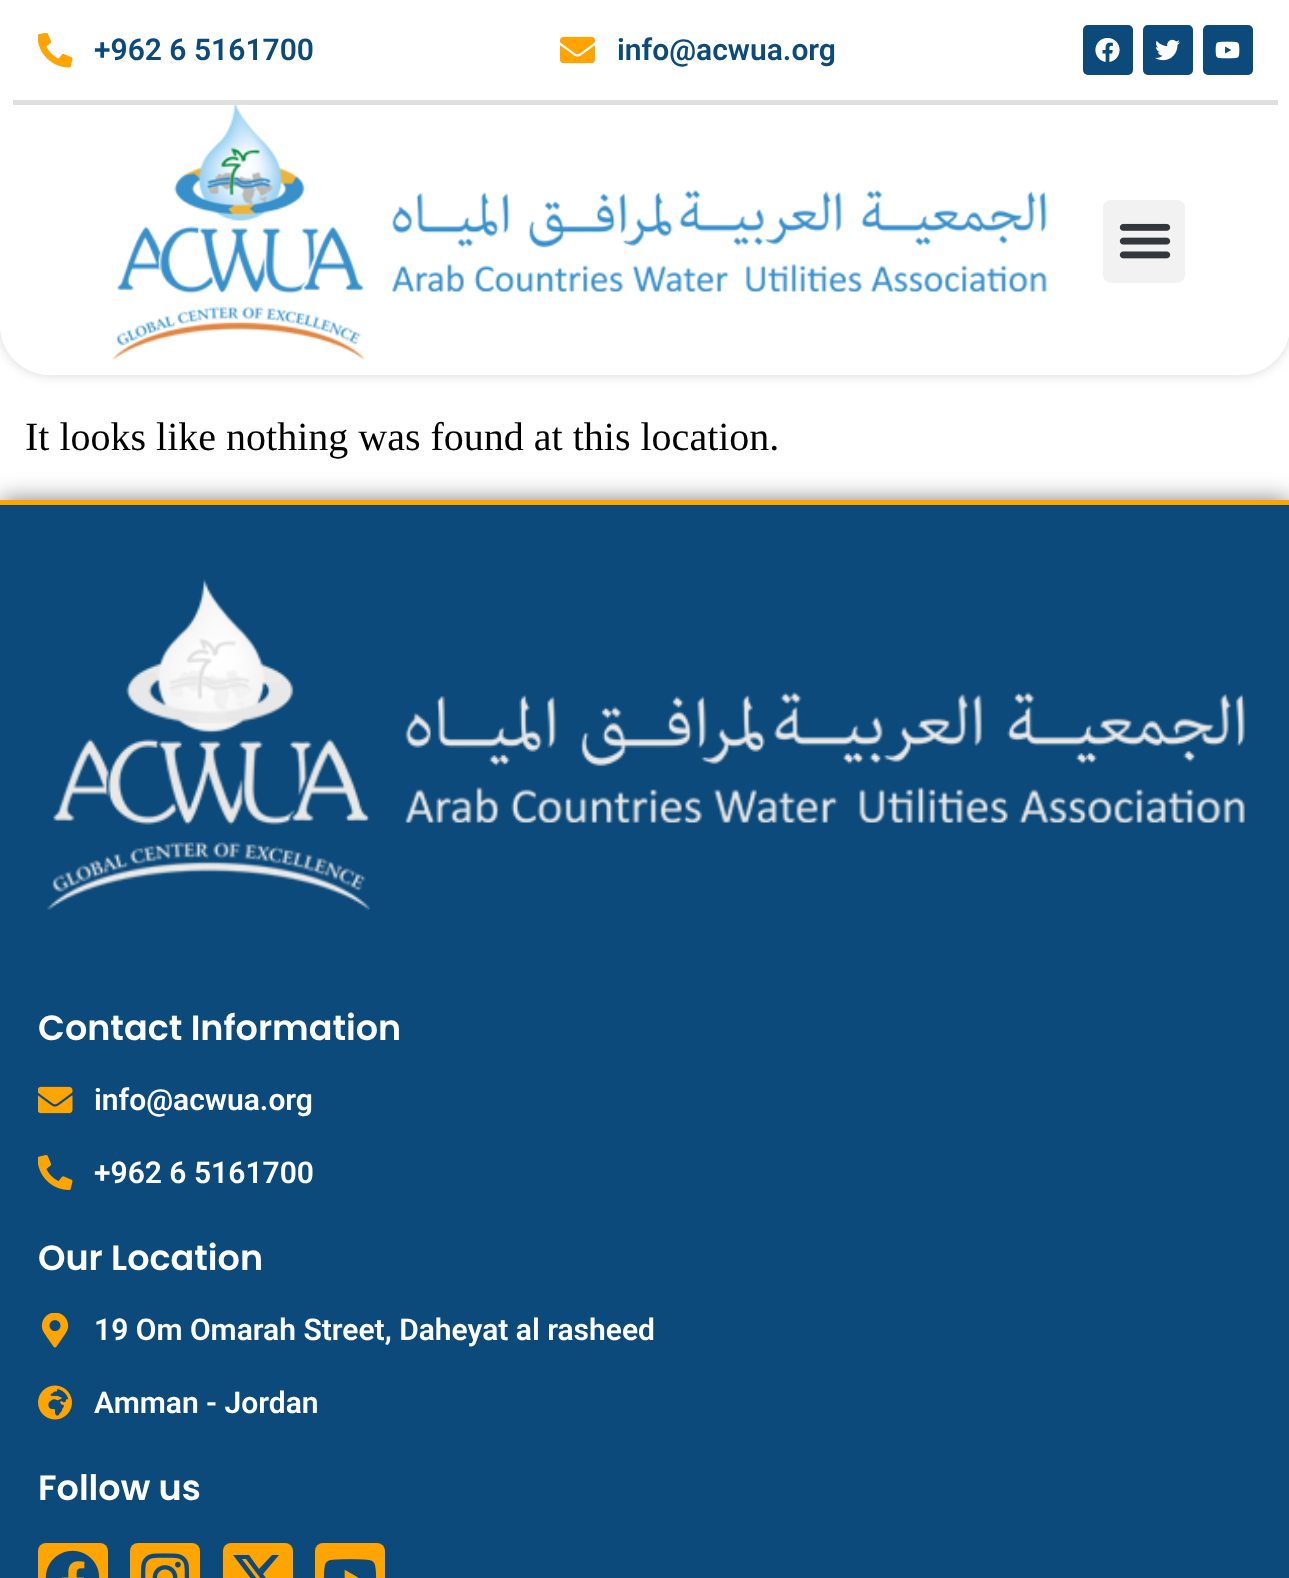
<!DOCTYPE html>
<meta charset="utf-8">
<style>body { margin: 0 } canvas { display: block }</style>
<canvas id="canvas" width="1289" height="1578"></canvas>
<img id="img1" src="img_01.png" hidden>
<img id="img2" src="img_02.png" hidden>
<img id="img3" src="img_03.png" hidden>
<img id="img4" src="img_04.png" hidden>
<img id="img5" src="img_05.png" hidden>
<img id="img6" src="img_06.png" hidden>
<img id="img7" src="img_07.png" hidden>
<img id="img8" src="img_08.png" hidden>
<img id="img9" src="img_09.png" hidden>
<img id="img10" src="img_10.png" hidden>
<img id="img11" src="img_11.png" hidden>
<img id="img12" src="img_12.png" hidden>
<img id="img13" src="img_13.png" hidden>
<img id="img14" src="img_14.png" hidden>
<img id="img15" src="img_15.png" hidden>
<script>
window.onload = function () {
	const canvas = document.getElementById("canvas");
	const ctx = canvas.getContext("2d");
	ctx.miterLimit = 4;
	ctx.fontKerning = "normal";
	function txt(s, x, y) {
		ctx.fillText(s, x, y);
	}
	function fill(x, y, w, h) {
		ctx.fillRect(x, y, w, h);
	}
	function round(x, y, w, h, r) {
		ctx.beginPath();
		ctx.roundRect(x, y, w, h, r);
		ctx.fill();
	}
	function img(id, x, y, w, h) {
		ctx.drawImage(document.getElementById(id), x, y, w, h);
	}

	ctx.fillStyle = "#FFFFFF";
	fill(0, 0, 1289, 1578);
	ctx.save();
	ctx.beginPath();
	ctx.moveTo(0, 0);
	ctx.lineTo(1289, 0);
	ctx.lineTo(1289, 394);
	ctx.lineTo(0, 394);
	ctx.closePath();
	ctx.moveTo(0, 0);
	ctx.lineTo(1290, 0);
	ctx.lineTo(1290, 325);
	ctx.bezierCurveTo(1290, 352.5, 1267.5, 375, 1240, 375);
	ctx.lineTo(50, 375);
	ctx.bezierCurveTo(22.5, 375, 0, 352.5, 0, 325);
	ctx.closePath();
	ctx.clip("evenodd");
	ctx.fillStyle = "rgba(175, 175, 175, 0.5)";
	ctx.filter = "blur(6px)";
	ctx.beginPath();
	ctx.roundRect(0, 0, 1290, 375, 50);
	ctx.fill();
	ctx.filter = "none";
	ctx.restore();
	ctx.fillStyle = "rgba(255, 255, 255, 0.85)";
	ctx.beginPath();
	ctx.moveTo(0, 0);
	ctx.lineTo(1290, 0);
	ctx.lineTo(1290, 325);
	ctx.bezierCurveTo(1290, 352.5, 1267.5, 375, 1240, 375);
	ctx.lineTo(50, 375);
	ctx.bezierCurveTo(22.5, 375, 0, 352.5, 0, 325);
	ctx.closePath();
	ctx.fill();
	ctx.fillStyle = "#DFDFDF";
	fill(13, 100, 1265, 5);
	img("img1", 38, 33, 35, 35);
	img("img2", 560, 36, 35, 28);
	ctx.fillStyle = "#0B4A7A";
	round(1083, 25, 50, 50, 5);
	img("img3", 1095, 38, 25, 24);
	round(1143, 25, 50, 50, 5);
	img("img4", 1155, 39, 25, 22);
	round(1203, 25, 50, 50, 5);
	img("img5", 1215, 41, 25, 18);
	img("img6", 112, 105, 935, 255);
	ctx.fillStyle = "#F2F2F2";
	round(1103, 200, 82, 83, 8);
	img("img7", 1119, 223, 52, 36);
	ctx.fillStyle = "rgba(0, 0, 0, 0.5)";
	ctx.filter = "blur(12.5px)";
	ctx.beginPath();
	ctx.rect(0, 500, 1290, 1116);
	ctx.fill();
	ctx.filter = "none";
	ctx.fillStyle = "#0B4A7A";
	fill(0, 505, 1289, 1073);
	ctx.fillStyle = "#FFA400";
	fill(0, 500, 1289, 5);
	img("img8", 47, 579, 1198, 331);
	img("img9", 38, 1086, 35, 28);
	img("img10", 38, 1155, 35, 35);
	img("img11", 41, 1313, 28, 35);
	img("img12", 38, 1385, 34, 35);
	round(38, 1543, 70, 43, 8);
	img("img13", 45, 1550, 55, 28);
	round(130, 1543, 70, 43, 8);
	img("img14", 140, 1553, 50, 25);
	round(223, 1543, 70, 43, 8);
	ctx.fillStyle = "#0B4A7A";
	ctx.beginPath();
	ctx.moveTo(272, 1555);
	ctx.lineTo(279, 1555);
	ctx.lineTo(263, 1574);
	ctx.lineTo(282, 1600);
	ctx.lineTo(267, 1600);
	ctx.lineTo(255, 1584);
	ctx.lineTo(241, 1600);
	ctx.lineTo(234, 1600);
	ctx.lineTo(252, 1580);
	ctx.lineTo(233, 1555);
	ctx.lineTo(249, 1555);
	ctx.lineTo(259, 1569);
	ctx.closePath();
	ctx.moveTo(269, 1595);
	ctx.lineTo(273, 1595);
	ctx.lineTo(246, 1559);
	ctx.lineTo(242, 1559);
	ctx.closePath();
	ctx.fill();
	ctx.fillStyle = "#FFA400";
	round(315, 1543, 70, 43, 8);
	img("img15", 323, 1559, 54, 19);
	ctx.font = "600 30px Roboto";
	ctx.fillStyle = "#0B4A7A";
	txt("+962 6 5161700", 94, 60);
	txt("info@acwua.org", 617, 60);
	ctx.font = "40px Liberation Serif";
	ctx.fillStyle = "#000000";
	txt("It looks like nothing was found at this location.", 25, 450);
	ctx.font = "600 35px Poppins";
	ctx.fillStyle = "#FFFFFF";
	txt("Contact Information", 38, 1040);
	ctx.font = "600 30px Roboto";
	txt("info@acwua.org", 94, 1110);
	txt("+962 6 5161700", 94, 1183);
	ctx.font = "600 35px Poppins";
	txt("Our Location", 38, 1270);
	ctx.font = "600 30px Roboto";
	txt("19 Om Omarah Street, Daheyat al rasheed", 94, 1340);
	txt("Amman - Jordan", 94, 1413);
	ctx.font = "600 35px Poppins";
	txt("Follow us", 38, 1500);
};
</script>
